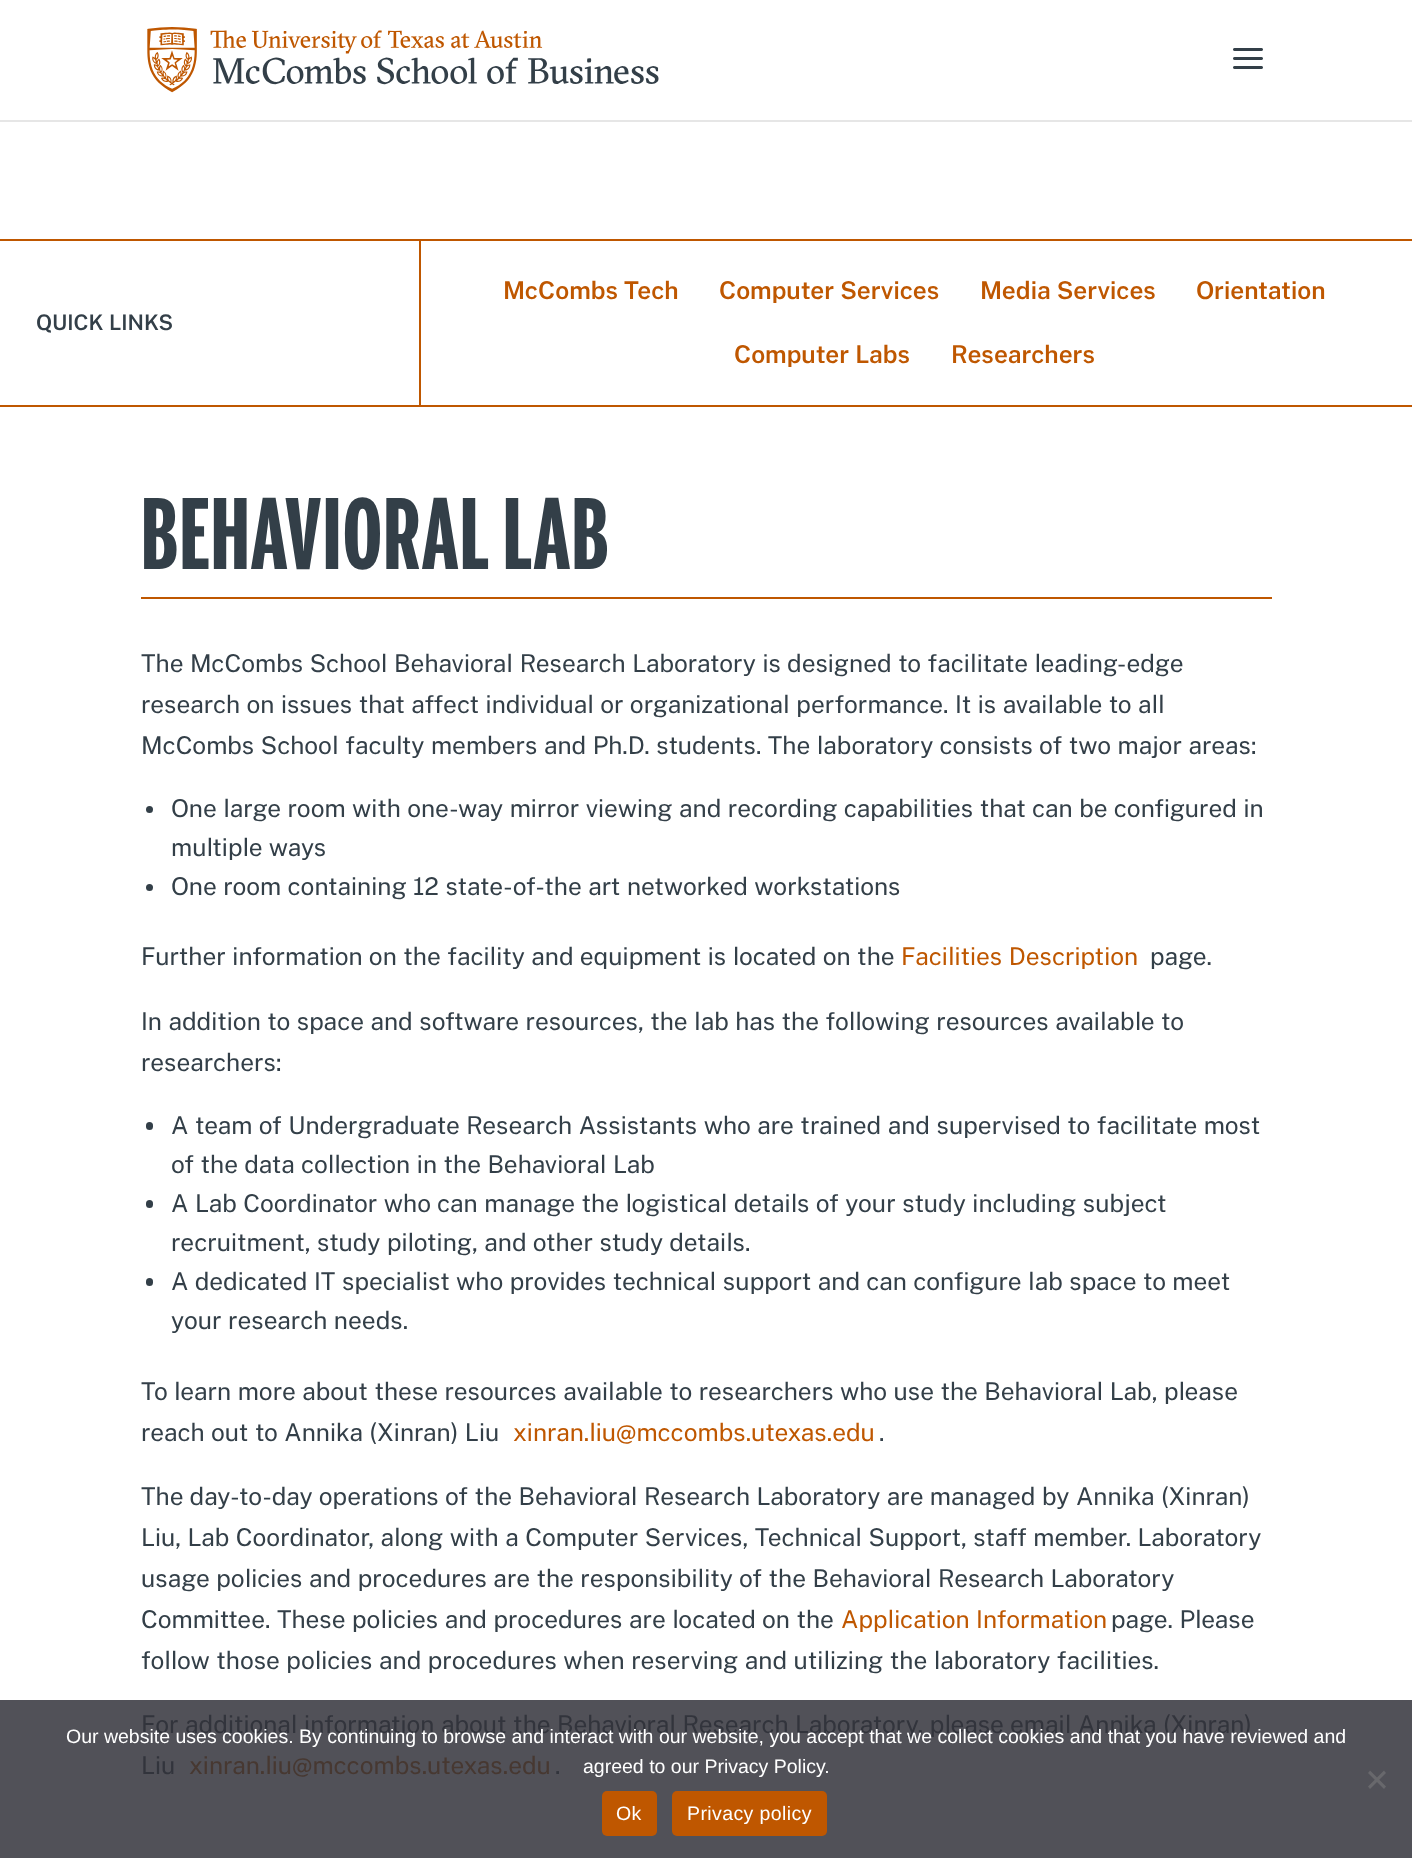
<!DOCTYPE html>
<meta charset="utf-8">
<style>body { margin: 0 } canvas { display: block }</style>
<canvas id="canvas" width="1412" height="1858"></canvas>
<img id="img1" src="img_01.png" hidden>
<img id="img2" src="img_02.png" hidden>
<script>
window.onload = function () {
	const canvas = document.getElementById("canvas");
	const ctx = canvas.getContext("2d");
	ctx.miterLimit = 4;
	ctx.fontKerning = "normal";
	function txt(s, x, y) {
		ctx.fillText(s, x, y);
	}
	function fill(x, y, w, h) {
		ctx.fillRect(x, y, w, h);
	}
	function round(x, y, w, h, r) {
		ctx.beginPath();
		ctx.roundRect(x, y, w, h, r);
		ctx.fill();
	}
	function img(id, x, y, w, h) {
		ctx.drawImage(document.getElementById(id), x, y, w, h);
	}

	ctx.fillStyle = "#FFFFFF";
	fill(0, 0, 1412, 1858);
	ctx.fillStyle = "#515158";
	fill(0, 1700, 1412, 158);
	ctx.fillStyle = "#E6E6E6";
	fill(0, 120, 1412, 2);
	img("img1", 147, 27, 512, 66);
	img("img2", 1233, 48, 30, 21);
	ctx.fillStyle = "#BF5700";
	fill(0, 239, 1412, 2);
	fill(0, 405, 1412, 2);
	fill(419, 240, 2, 165);
	fill(141, 597, 1131, 2);
	ctx.fillStyle = "#333F48";
	ctx.beginPath();
	ctx.arc(149.5, 809.5, 3.5, 0, Math.PI * 2);
	ctx.fill();
	ctx.beginPath();
	ctx.arc(149.5, 887.5, 3.5, 0, Math.PI * 2);
	ctx.fill();
	round(146, 1122, 7, 8, 3.5);
	round(146, 1200, 7, 8, 3.5);
	round(146, 1278, 7, 8, 3.5);
	ctx.fillStyle = "#68686C";
	ctx.beginPath();
	ctx.moveTo(1384, 1770.5);
	ctx.lineTo(1386, 1773);
	ctx.lineTo(1370, 1789);
	ctx.lineTo(1368, 1786.5);
	ctx.closePath();
	ctx.fill();
	ctx.beginPath();
	ctx.moveTo(1368, 1773);
	ctx.lineTo(1370, 1770.5);
	ctx.lineTo(1386, 1786.5);
	ctx.lineTo(1384, 1789);
	ctx.closePath();
	ctx.fill();
	ctx.fillStyle = "#BF5700";
	round(602, 1791, 55, 45, 5);
	round(672, 1791, 155, 45, 5);
	ctx.font = "600 21px '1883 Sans'";
	ctx.fillStyle = "#333F48";
	txt("QUICK LINKS", 36, 330);
	ctx.font = "600 24px '1883 Sans'";
	ctx.fillStyle = "#BF5700";
	txt("McCombs Tech", 503, 299);
	txt("Computer Services", 719, 299);
	txt("Media Services", 980, 299);
	txt("Orientation", 1196, 299);
	txt("Computer Labs", 734, 363);
	txt("Researchers", 951, 363);
	ctx.letterSpacing = "1.5px";
	ctx.font = "bold 96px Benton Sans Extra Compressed";
	ctx.fillStyle = "#333F48";
	txt("BEHAVIORAL LAB", 141, 569);
	ctx.letterSpacing = "0px";
	ctx.font = "24px '1883 Sans'";
	txt("The McCombs School Behavioral Research Laboratory is designed to facilitate leading-edge", 141, 672);
	txt("research on issues that affect individual or organizational performance. It is available to all", 141, 713);
	txt("McCombs School faculty members and Ph.D. students. The laboratory consists of two major areas:", 141, 754);
	txt("One large room with one-way mirror viewing and recording capabilities that can be configured in", 171, 817);
	txt("multiple ways", 171, 856);
	txt("One room containing 12 state-of-the art networked workstations", 171, 895);
	txt("Further information on the facility and equipment is located on the", 141, 965);
	ctx.fillStyle = "#BF5700";
	txt("Facilities Description", 901, 965);
	ctx.fillStyle = "#333F48";
	txt("page.", 1150, 965);
	txt("In addition to space and software resources, the lab has the following resources available to", 141, 1030);
	txt("researchers:", 141, 1071);
	txt("A team of Undergraduate Research Assistants who are trained and supervised to facilitate most", 171, 1134);
	txt("of the data collection in the Behavioral Lab", 171, 1173);
	txt("A Lab Coordinator who can manage the logistical details of your study including subject", 171, 1212);
	txt("recruitment, study piloting, and other study details.", 171, 1251);
	txt("A dedicated IT specialist who provides technical support and can configure lab space to meet", 171, 1290);
	txt("your research needs.", 171, 1329);
	txt("To learn more about these resources available to researchers who use the Behavioral Lab, please", 141, 1400);
	txt("reach out to Annika (Xinran) Liu", 141, 1441);
	ctx.fillStyle = "#BF5700";
	txt("xinran.liu@mccombs.utexas.edu", 513, 1441);
	ctx.fillStyle = "#333F48";
	txt(".", 879, 1441);
	txt("The day-to-day operations of the Behavioral Research Laboratory are managed by Annika (Xinran)", 141, 1505);
	txt("Liu, Lab Coordinator, along with a Computer Services, Technical Support, staff member. Laboratory", 141, 1546);
	txt("usage policies and procedures are the responsibility of the Behavioral Research Laboratory", 141, 1587);
	txt("Committee. These policies and procedures are located on the", 141, 1628);
	ctx.fillStyle = "#BF5700";
	txt("Application Information", 841, 1628);
	ctx.fillStyle = "#333F48";
	txt("page. Please", 1111, 1628);
	txt("follow those policies and procedures when reserving and utilizing the laboratory facilities.", 141, 1669);
	ctx.fillStyle = "#32343C";
	txt("For additional information about the Behavioral Research Laboratory, please email Annika (Xinran)", 141, 1733);
	txt("Liu", 141, 1774);
	ctx.fillStyle = "#473831";
	txt("xinran.liu@mccombs.utexas.edu", 189, 1774);
	ctx.fillStyle = "#32343C";
	txt(".", 555, 1774);
	ctx.font = "19.5px Liberation Sans";
	ctx.fillStyle = "#FFFFFF";
	txt("Our website uses cookies. By continuing to browse and interact with our website, you accept that we collect cookies and that you have reviewed and", 66, 1743);
	txt("agreed to our Privacy Policy.", 583, 1773);
	ctx.letterSpacing = "0.4px";
	txt("Ok", 616, 1820);
	txt("Privacy policy", 687, 1820);
};
</script>
